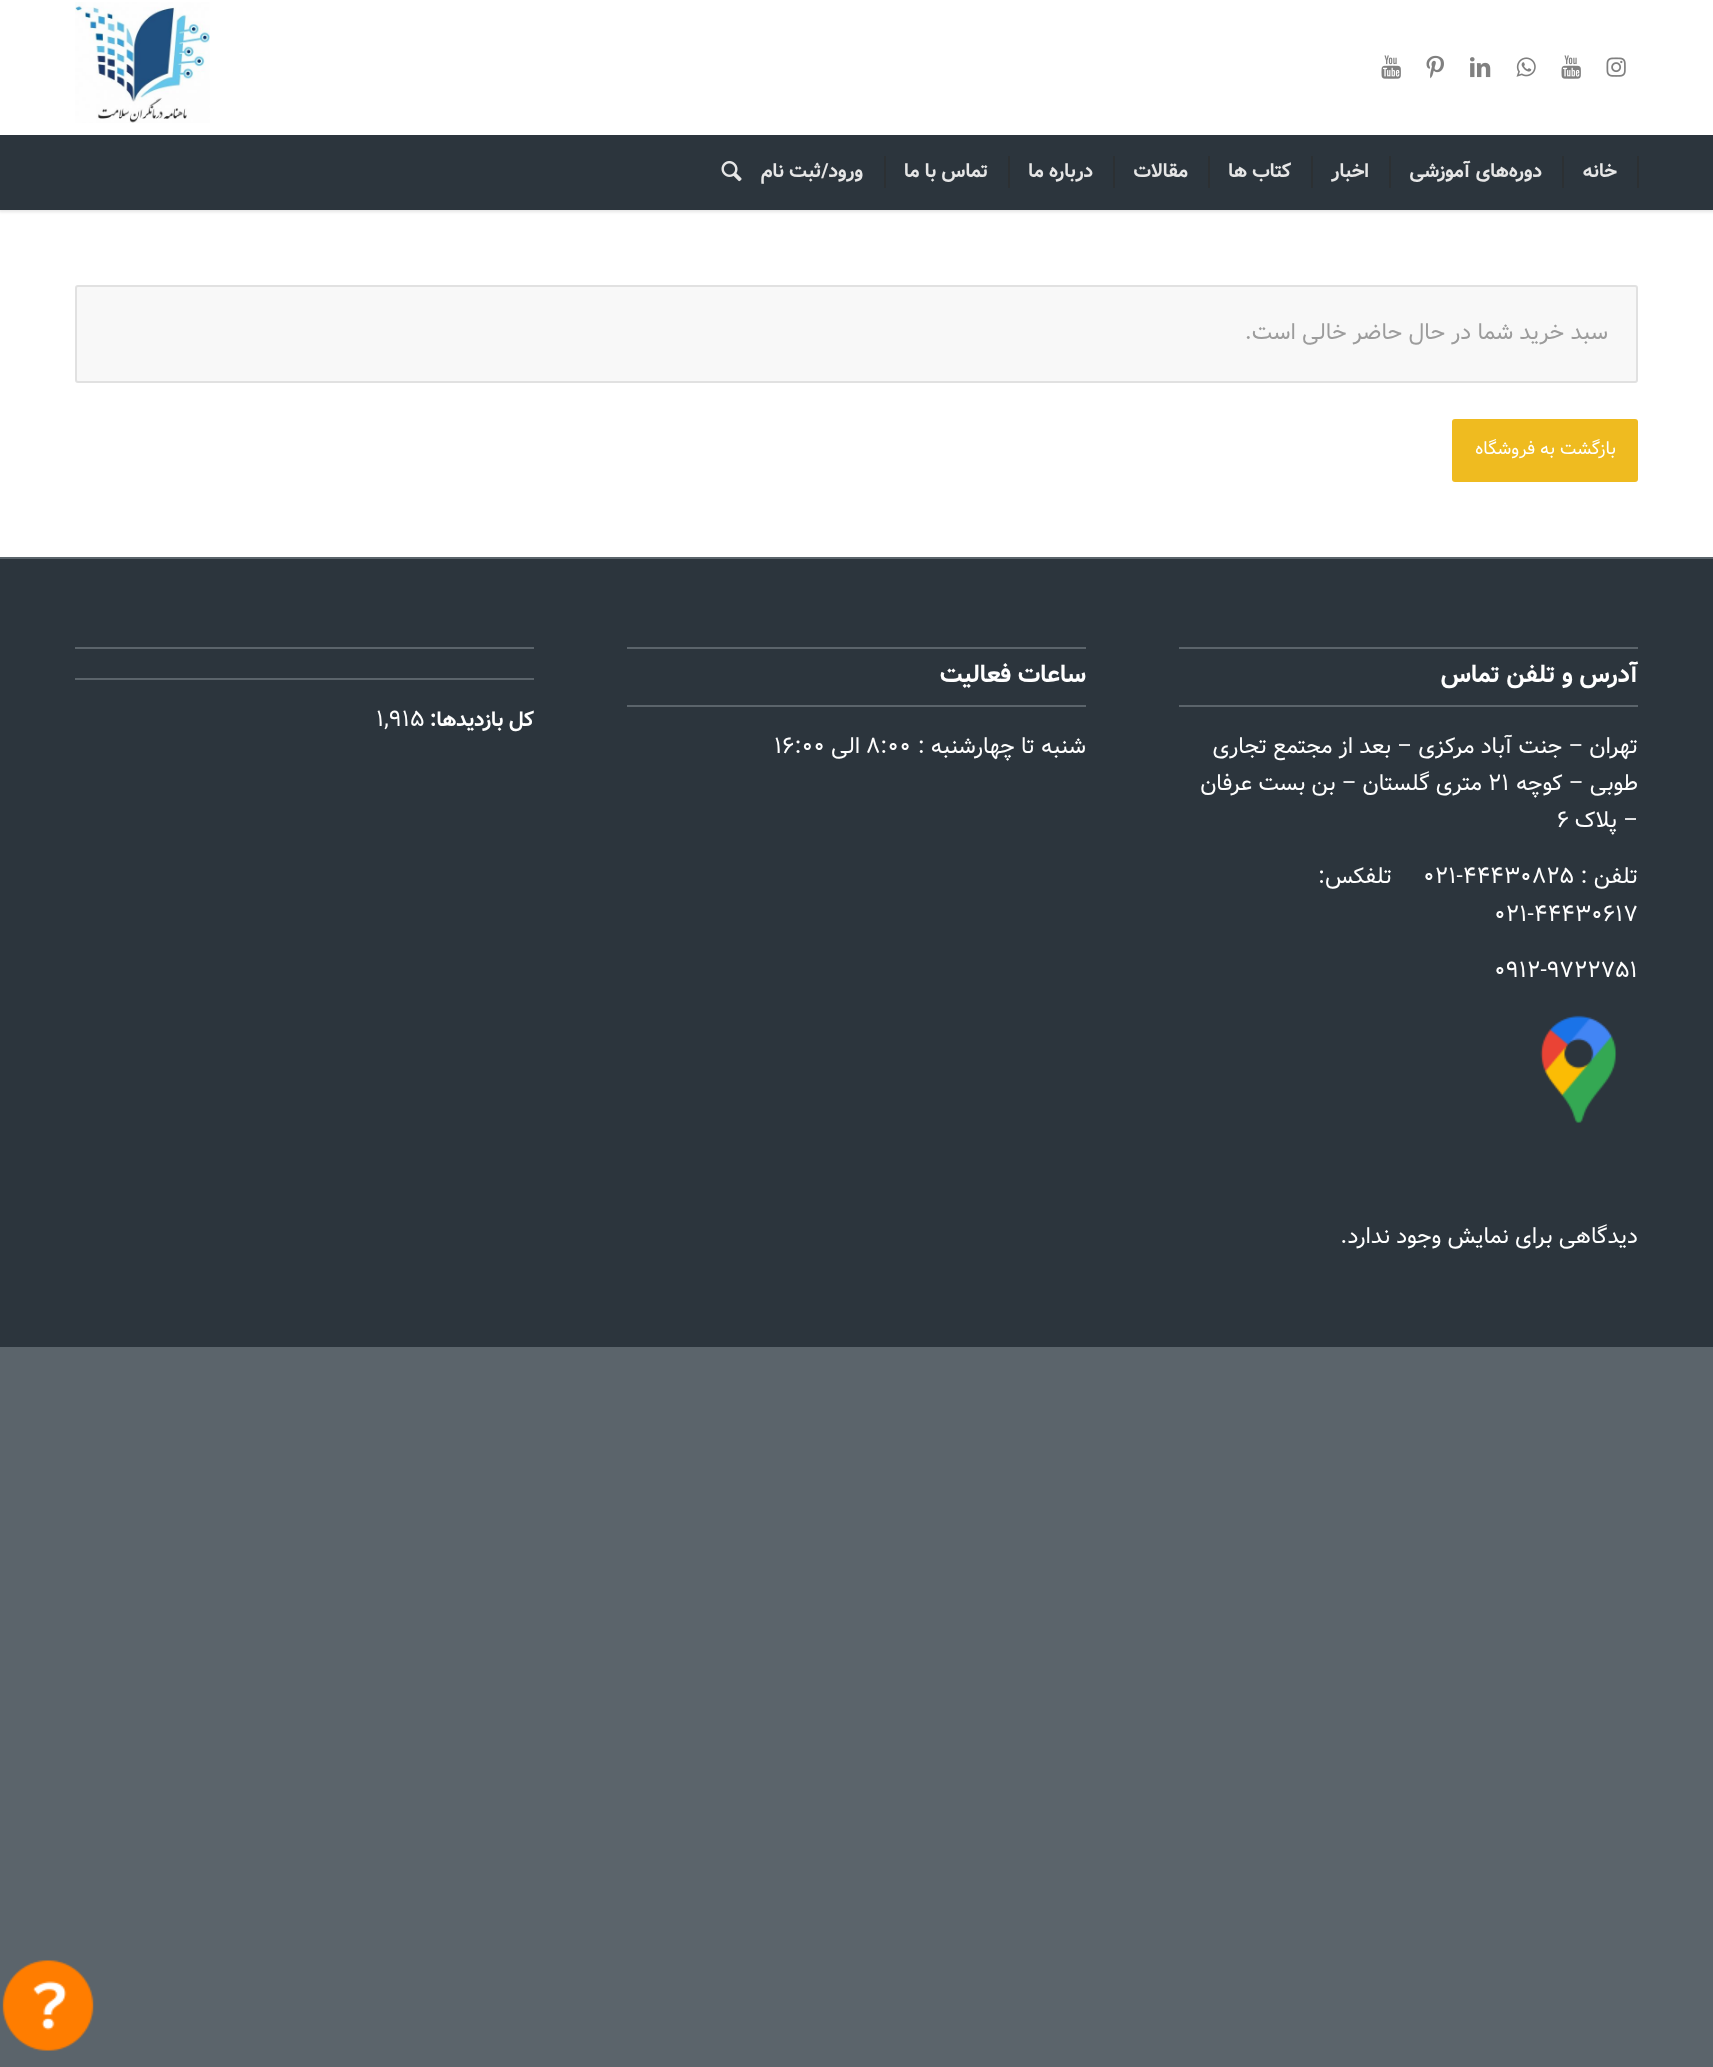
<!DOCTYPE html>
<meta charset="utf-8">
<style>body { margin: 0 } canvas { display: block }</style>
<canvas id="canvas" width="1713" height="2067"></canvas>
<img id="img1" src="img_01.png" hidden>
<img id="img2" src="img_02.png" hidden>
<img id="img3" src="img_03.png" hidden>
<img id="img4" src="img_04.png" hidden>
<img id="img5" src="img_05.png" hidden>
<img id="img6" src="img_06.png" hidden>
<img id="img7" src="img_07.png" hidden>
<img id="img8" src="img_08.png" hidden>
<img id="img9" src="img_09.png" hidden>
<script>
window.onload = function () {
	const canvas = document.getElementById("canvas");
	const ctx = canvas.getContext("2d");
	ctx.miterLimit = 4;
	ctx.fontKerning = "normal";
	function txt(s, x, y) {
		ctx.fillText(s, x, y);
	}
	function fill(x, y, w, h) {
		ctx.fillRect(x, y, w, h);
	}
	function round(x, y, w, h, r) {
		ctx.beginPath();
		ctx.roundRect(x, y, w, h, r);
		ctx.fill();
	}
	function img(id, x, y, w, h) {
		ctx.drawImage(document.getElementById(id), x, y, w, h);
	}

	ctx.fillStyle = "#5B646B";
	fill(0, 0, 1713, 2067);
	ctx.fillStyle = "#FFFFFF";
	fill(0, 210, 1713, 347);
	ctx.fillStyle = "rgba(0, 0, 0, 0.1)";
	ctx.filter = "blur(1.5px)";
	ctx.beginPath();
	ctx.rect(-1, -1, 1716, 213);
	ctx.fill();
	ctx.filter = "none";
	ctx.fillStyle = "#FFFFFF";
	fill(0, 0, 1713, 135);
	img("img1", 1606, 57, 20, 20);
	img("img2", 1561, 55, 20, 24);
	img("img3", 1516, 57, 20, 20);
	img("img4", 1470, 57, 21, 21);
	img("img5", 1426, 55, 18, 24);
	img("img2", 1381, 55, 20, 24);
	img("img6", 75, 2, 135, 121);
	ctx.fillStyle = "#2C353D";
	fill(0, 135, 1713, 75);
	ctx.fillStyle = "#2C3033";
	fill(1637, 156, 2, 32);
	fill(1562, 156, 2, 32);
	fill(1389, 156, 2, 32);
	fill(1311, 156, 2, 32);
	fill(1208, 156, 2, 32);
	fill(1113, 156, 2, 32);
	fill(1008, 156, 2, 32);
	fill(884, 156, 2, 32);
	img("img7", 721, 161, 21, 21);
	ctx.fillStyle = "#F8F8F8";
	ctx.beginPath();
	ctx.roundRect(76, 286, 1561, 96, 2);
	ctx.fill();
	ctx.strokeStyle = "#E1E1E1";
	ctx.lineWidth = 2;
	ctx.stroke();
	ctx.fillStyle = "#EFBB20";
	round(1452, 419, 186, 63, 3);
	ctx.fillStyle = "#2C353D";
	fill(0, 559, 1713, 788);
	ctx.fillStyle = "#5B646B";
	fill(1179, 647, 459, 2);
	fill(1179, 705, 459, 2);
	img("img8", 1540, 1015, 77, 108);
	fill(627, 647, 459, 2);
	fill(627, 705, 459, 2);
	fill(75, 647, 459, 2);
	fill(75, 678, 459, 2);
	img("img9", 2, 1960, 92, 91);
	ctx.direction = "rtl";
	ctx.font = "bold 19.5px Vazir";
	ctx.fillStyle = "#E6E6E6";
	txt("خانه", 1617, 177);
	txt("دوره‌های آموزشی", 1542, 177);
	txt("اخبار", 1369, 177);
	txt("کتاب ها", 1291, 177);
	txt("مقالات", 1188, 177);
	txt("درباره ما", 1093, 177);
	txt("تماس با ما", 988, 177);
	txt("ورود/ثبت نام", 863, 177);
	ctx.font = "22.5px Vazir";
	ctx.fillStyle = "#9C9C9C";
	txt("سبد خرید شما در حال حاضر خالی است.", 1608, 339);
	ctx.font = "18px Vazir";
	ctx.fillStyle = "#FFFFFF";
	txt("بازگشت به فروشگاه", 1616, 454);
	ctx.font = "bold 24.75px Vazir";
	txt("آدرس و تلفن تماس", 1638, 682);
	ctx.font = "22.5px Vazir";
	txt("تهران – جنت آباد مرکزی – بعد از مجتمع تجاری", 1638, 753);
	txt("طوبی – کوچه", 1638, 790);
	ctx.direction = "ltr";
	txt("۲۱", 1488, 790);
	ctx.direction = "rtl";
	txt("متری گلستان – بن بست عرفان", 1482, 790);
	txt("– پلاک", 1638, 827);
	ctx.direction = "ltr";
	txt("۶", 1557, 827);
	ctx.direction = "rtl";
	txt("تلفن :", 1638, 883);
	ctx.direction = "ltr";
	txt("۰۲۱-۴۴۴۳۰۸۲۵", 1423, 883);
	ctx.direction = "rtl";
	txt("تلفکس:", 1392, 883);
	ctx.direction = "ltr";
	txt("۰۲۱-۴۴۴۳۰۶۱۷", 1494, 921);
	txt("۰۹۱۲-۹۷۲۲۷۵۱", 1494, 977);
	ctx.direction = "rtl";
	txt("دیدگاهی برای نمایش وجود ندارد.", 1638, 1243);
	ctx.font = "bold 24.75px Vazir";
	txt("ساعات فعالیت", 1086, 682);
	ctx.font = "22.5px Vazir";
	txt("شنبه تا چهارشنبه :", 1086, 753);
	ctx.direction = "ltr";
	txt("۸:۰۰", 866, 753);
	ctx.direction = "rtl";
	txt("الی", 860, 753);
	ctx.direction = "ltr";
	txt("۱۶:۰۰", 774, 753);
	ctx.direction = "rtl";
	ctx.font = "bold 20.75px Vazir";
	txt("کل بازدیدها:", 534, 726);
	ctx.direction = "ltr";
	ctx.font = "22.5px Vazir";
	txt("۱,۹۱۵", 376, 726);
};
</script>
